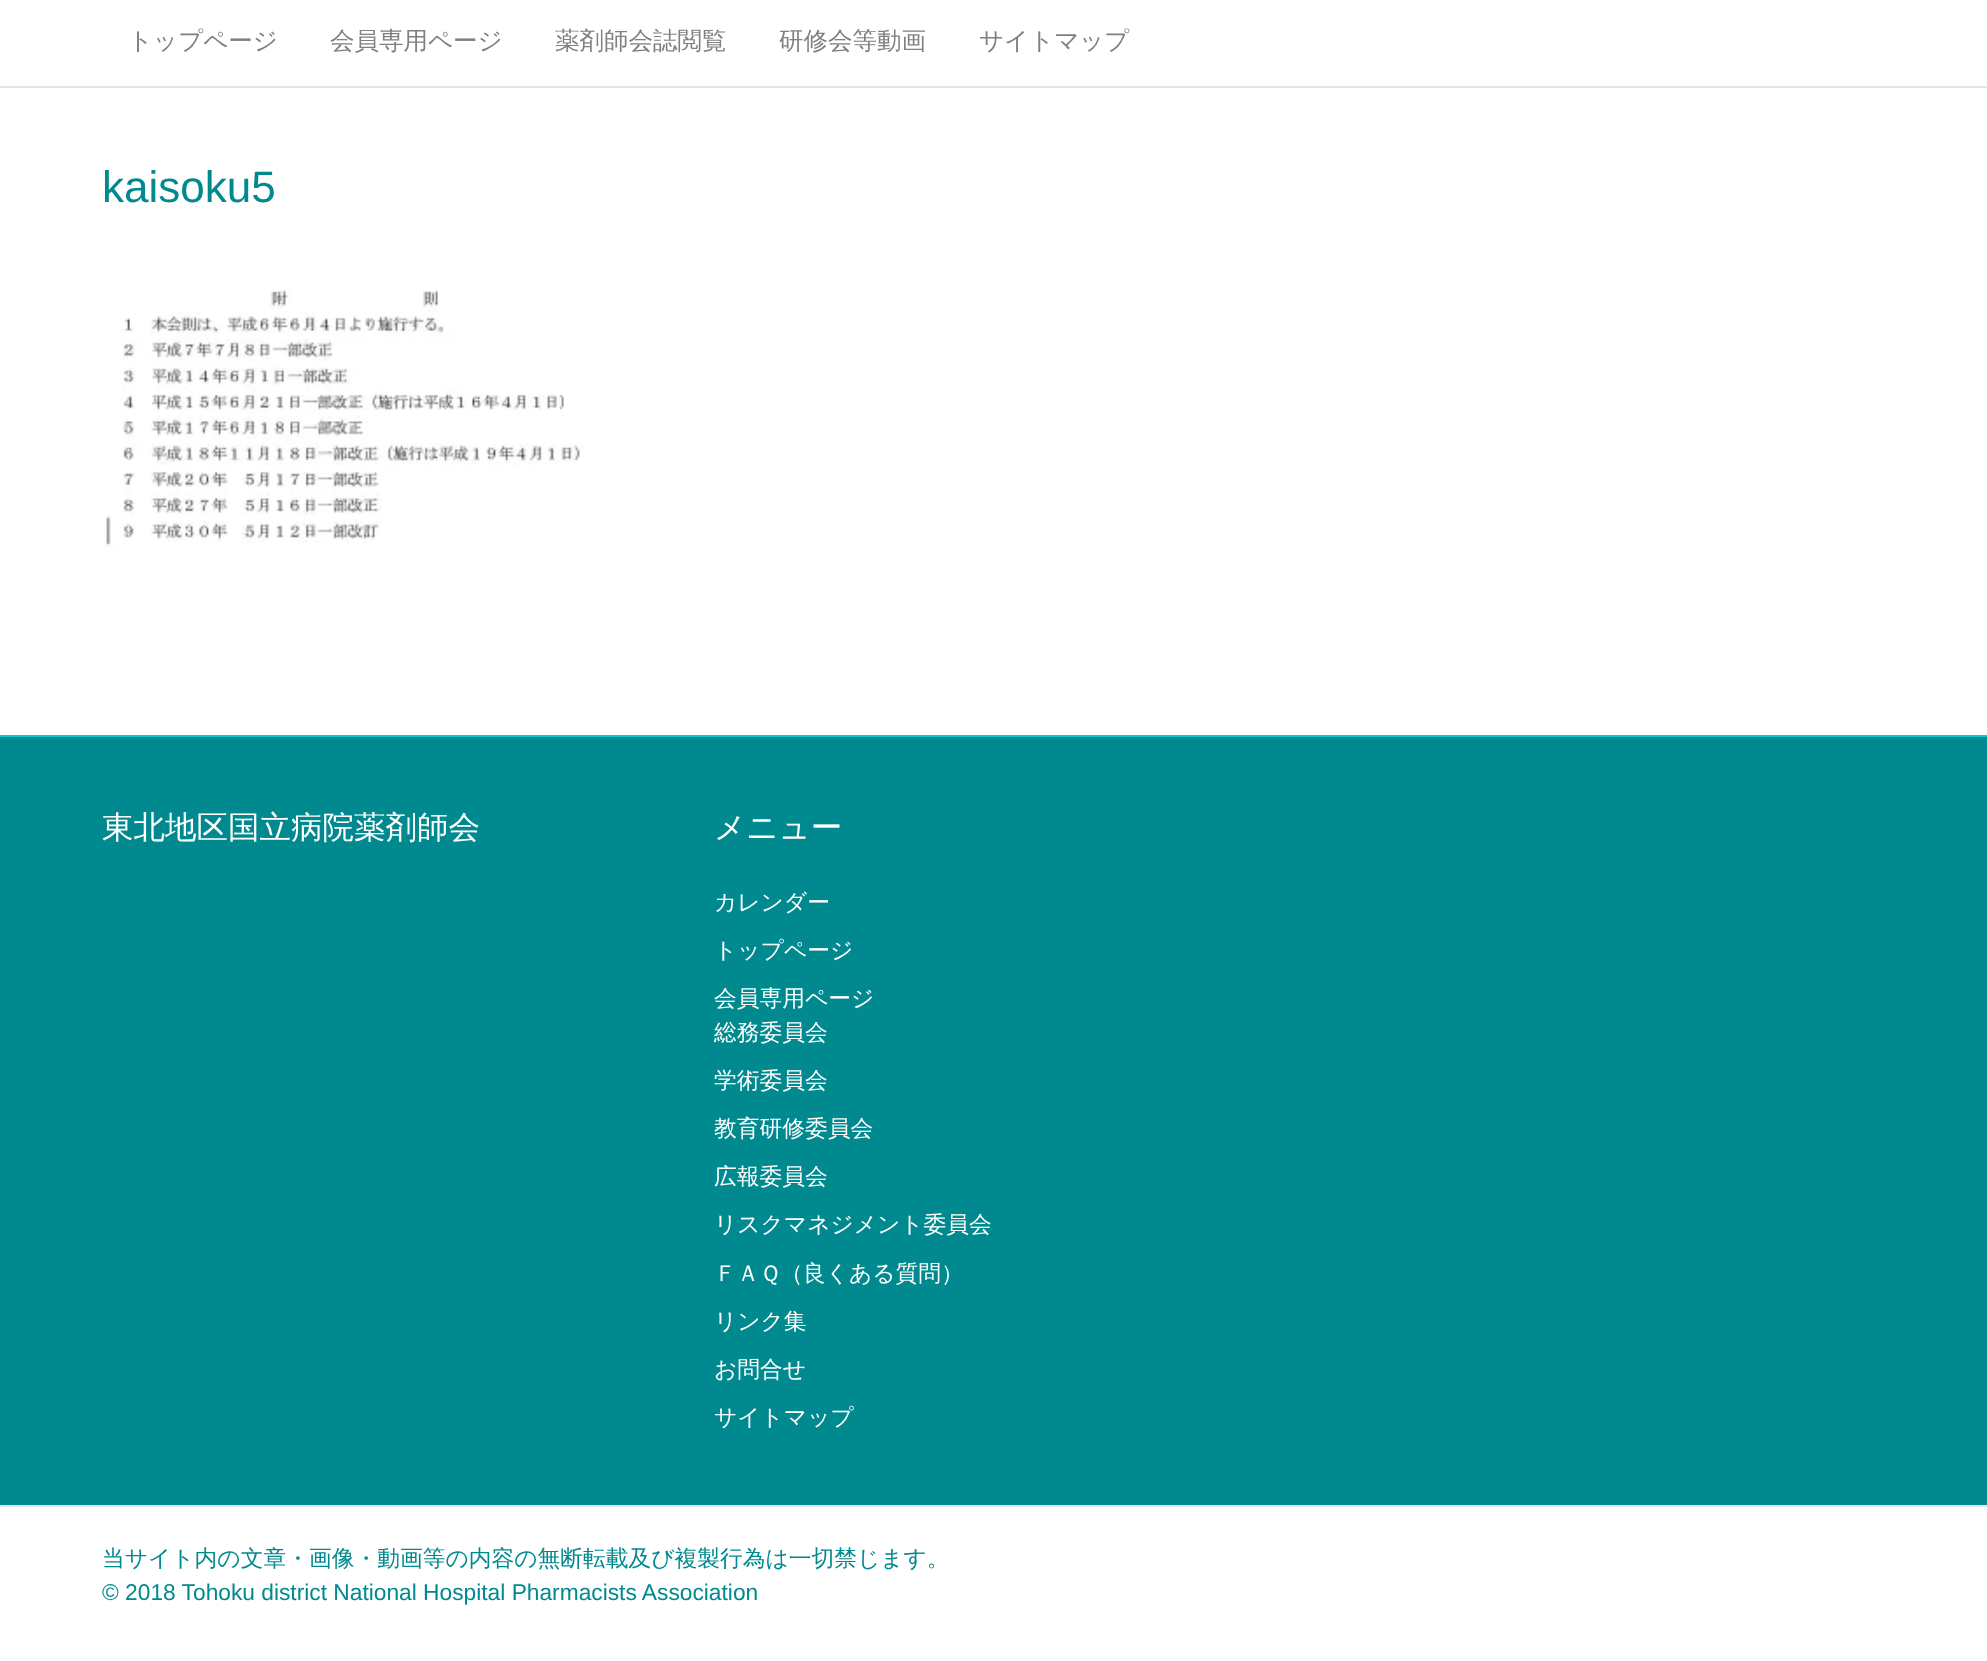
<!DOCTYPE html>
<meta charset="utf-8">
<style>body { margin: 0 } canvas { display: block }</style>
<canvas id="canvas" width="1987" height="1661"></canvas>
<img id="img1" src="img_01.png" hidden>
<script>
window.onload = function () {
	const canvas = document.getElementById("canvas");
	const ctx = canvas.getContext("2d");
	ctx.miterLimit = 4;
	ctx.fontKerning = "normal";
	function txt(s, x, y) {
		ctx.fillText(s, x, y);
	}
	function fill(x, y, w, h) {
		ctx.fillRect(x, y, w, h);
	}
	function img(id, x, y, w, h) {
		ctx.drawImage(document.getElementById(id), x, y, w, h);
	}

	ctx.fillStyle = "#FFFFFF";
	fill(0, 0, 1987, 1661);
	ctx.fillStyle = "#E6E6E6";
	fill(0, 86, 1987, 2);
	img("img1", 102, 290, 483, 257);
	ctx.fillStyle = "#00898F";
	fill(0, 737, 1987, 768);
	ctx.fillStyle = "#00C9D1";
	fill(0, 735, 1987, 2);
	ctx.fillStyle = "#E6E6E6";
	fill(0, 1505, 1987, 2);
	ctx.font = "500 24.5px WenQuanYi Zen Hei";
	ctx.fillStyle = "#808080";
	txt("トップページ", 128, 49);
	txt("会員専用ページ", 330, 49);
	txt("薬剤師会誌閲覧", 555, 49);
	txt("研修会等動画", 779, 49);
	txt("サイトマップ", 979, 49);
	ctx.font = "44px Liberation Sans";
	ctx.fillStyle = "#00898F";
	txt("kaisoku5", 102, 202);
	ctx.font = "500 31.5px WenQuanYi Zen Hei";
	ctx.fillStyle = "#FFFFFF";
	txt("東北地区国立病院薬剤師会", 102, 838);
	txt("メニュー", 714, 838);
	ctx.font = "500 22.75px WenQuanYi Zen Hei";
	txt("カレンダー", 714, 910);
	txt("トップページ", 714, 958);
	txt("会員専用ページ", 714, 1006);
	txt("総務委員会", 714, 1040);
	txt("学術委員会", 714, 1088);
	txt("教育研修委員会", 714, 1136);
	txt("広報委員会", 714, 1184);
	txt("リスクマネジメント委員会", 714, 1232);
	txt("ＦＡＱ（良くある質問）", 714, 1281);
	txt("リンク集", 714, 1329);
	txt("お問合せ", 714, 1377);
	txt("サイトマップ", 714, 1425);
	ctx.fillStyle = "#00898F";
	txt("当サイト内の文章・画像・動画等の内容の無断転載及び複製行為は一切禁じます。", 102, 1566);
	ctx.font = "22.75px Liberation Sans";
	txt("© 2018 Tohoku district National Hospital Pharmacists Association", 102, 1600);
};
</script>
